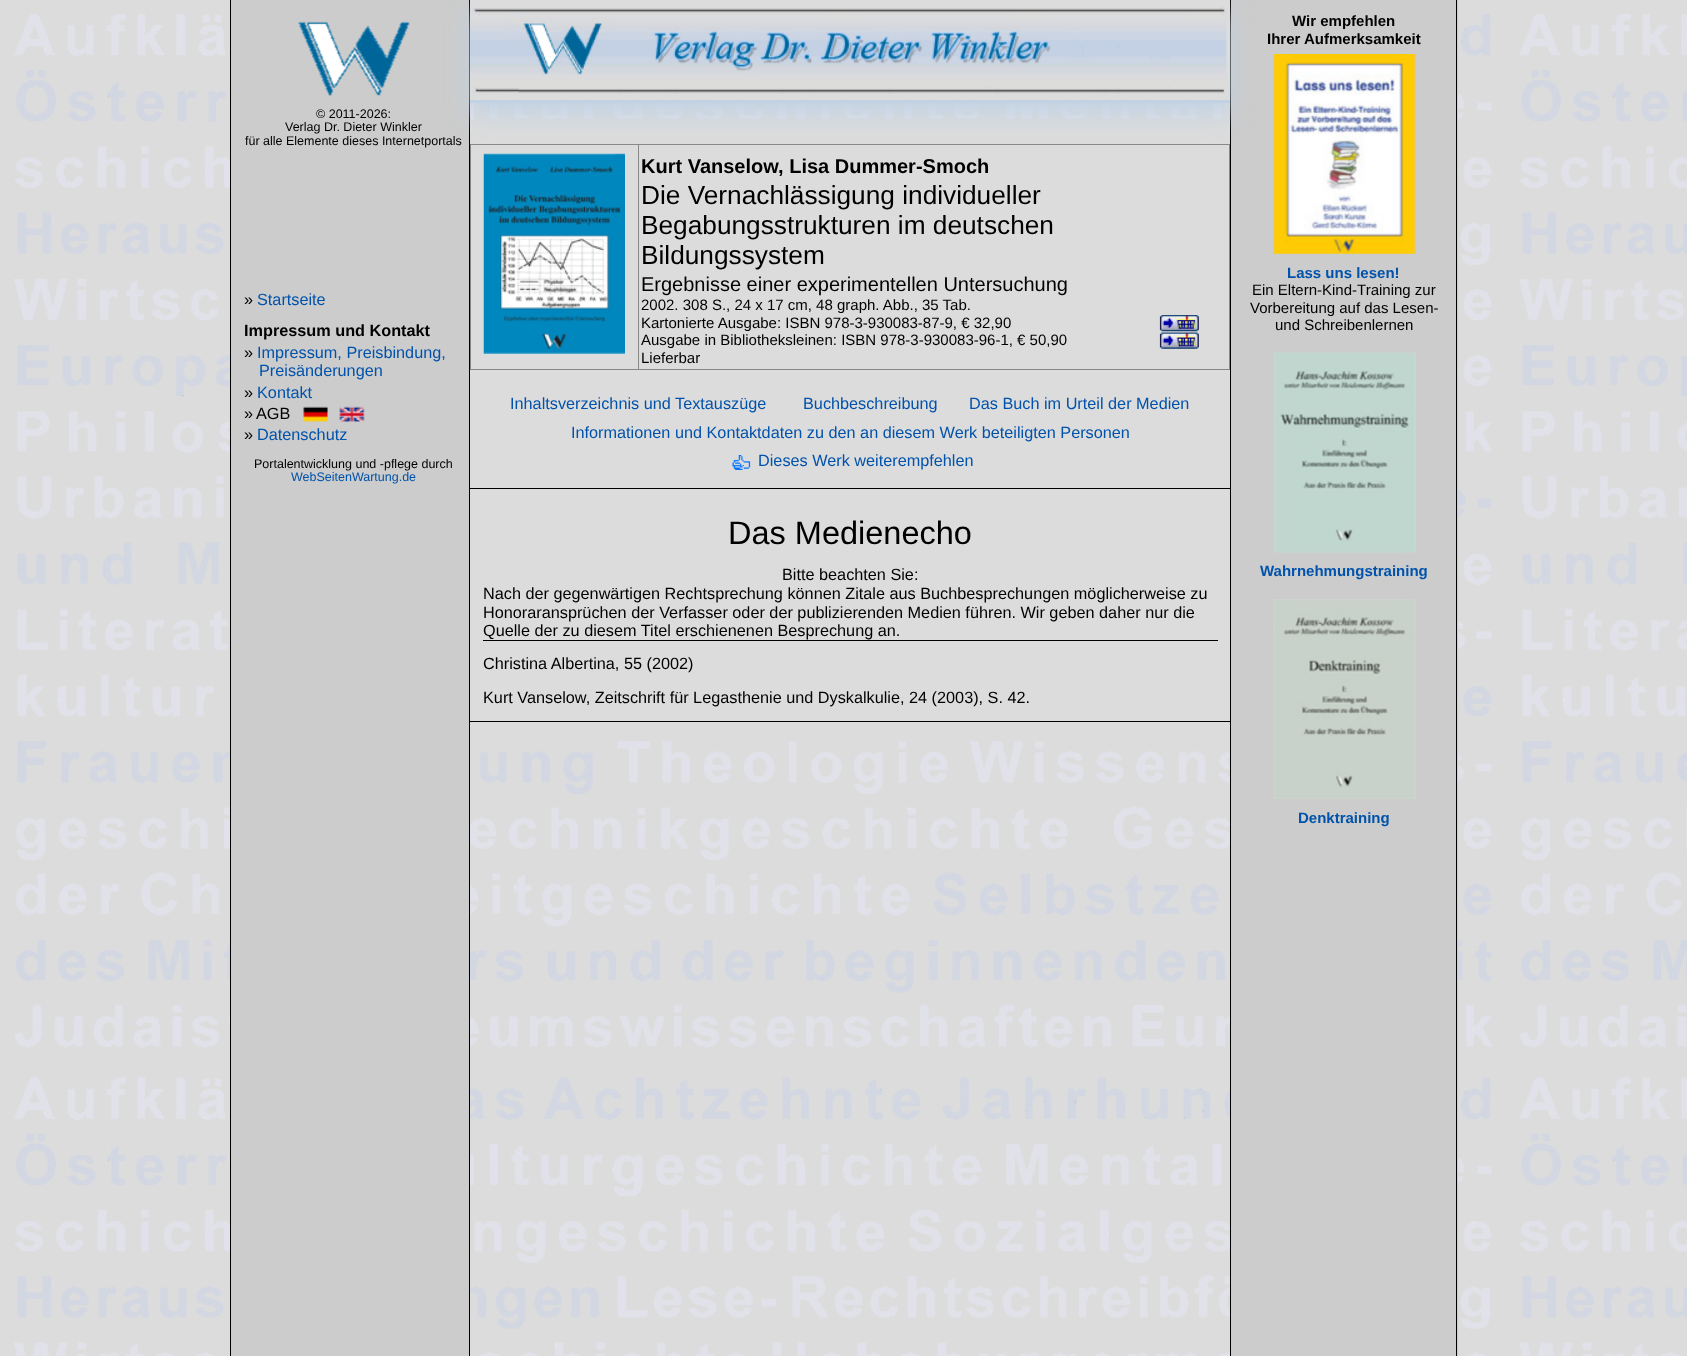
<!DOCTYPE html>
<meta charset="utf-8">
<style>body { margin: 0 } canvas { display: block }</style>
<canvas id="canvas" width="1687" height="1356"></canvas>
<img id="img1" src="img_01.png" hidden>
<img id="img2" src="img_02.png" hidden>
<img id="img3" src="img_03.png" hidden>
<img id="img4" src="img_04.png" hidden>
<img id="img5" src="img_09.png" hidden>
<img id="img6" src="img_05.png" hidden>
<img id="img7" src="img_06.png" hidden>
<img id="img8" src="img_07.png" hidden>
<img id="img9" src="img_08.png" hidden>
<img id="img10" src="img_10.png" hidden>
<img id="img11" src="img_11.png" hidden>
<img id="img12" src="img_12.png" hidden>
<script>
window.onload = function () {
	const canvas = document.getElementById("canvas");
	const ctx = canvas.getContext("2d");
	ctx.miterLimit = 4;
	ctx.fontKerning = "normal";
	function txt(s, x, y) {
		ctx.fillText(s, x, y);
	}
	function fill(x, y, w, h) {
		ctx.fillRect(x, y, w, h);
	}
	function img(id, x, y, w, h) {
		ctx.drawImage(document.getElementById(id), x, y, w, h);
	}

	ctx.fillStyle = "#DCDCDC";
	fill(0, 0, 1687, 1356);
	img("img1", 14, 14, 1673, 1342);
	ctx.fillStyle = "#CCCCCC";
	fill(231, 0, 238, 1356);
	ctx.fillStyle = "#000000";
	fill(469, 721, 762, 1);
	fill(469, 0, 1, 1356);
	fill(230, 0, 1, 1356);
	img("img2", 298, 21, 112, 75);
	img("img3", 303, 406, 25, 16);
	img("img4", 339, 406, 26, 16);
	ctx.fillStyle = "#CCCCCC";
	fill(1231, 0, 227, 1356);
	ctx.fillStyle = "#000000";
	fill(1230, 0, 1, 1356);
	ctx.fillStyle = "#DCDCDC";
	fill(470, 119, 760, 598);
	ctx.fillStyle = "#888888";
	fill(470, 144, 760, 1);
	fill(1229, 144, 1, 226);
	fill(470, 369, 760, 1);
	fill(470, 144, 1, 226);
	img("img5", 483, 153, 142, 201);
	fill(638, 144, 1, 226);
	ctx.fillStyle = "#C1D2E2";
	ctx.filter = "blur(12.5px)";
	ctx.beginPath();
	ctx.rect(470, 13, 760, 102);
	ctx.fill();
	ctx.filter = "none";
	ctx.fillStyle = "#DCDCDC";
	fill(470, 0, 760, 100);
	ctx.fillStyle = "#C1D2E2";
	fill(470, 100, 760, 3);
	img("img6", 470, 6, 757, 88);
	ctx.fillStyle = "#000000";
	fill(1456, 0, 1, 1356);
	img("img7", 1273, 54, 143, 200);
	img("img8", 1273, 352, 143, 201);
	img("img9", 1273, 599, 143, 200);
	img("img10", 1159, 315, 40, 17);
	img("img11", 1159, 332, 40, 17);
	img("img12", 732, 455, 19, 15);
	fill(470, 488, 760, 1);
	fill(483, 640, 735, 1);
	ctx.font = "12.5px Liberation Sans";
	txt("© 2011-2026:", 316, 118);
	txt("Verlag Dr. Dieter Winkler", 285, 131);
	txt("für alle Elemente dieses Internetportals", 245, 145);
	ctx.font = "16.25px Liberation Sans";
	txt("»", 244, 305);
	ctx.fillStyle = "#0052AB";
	txt("Startseite", 257, 305);
	ctx.font = "bold 16.25px Liberation Sans";
	ctx.fillStyle = "#000000";
	txt("Impressum und Kontakt", 244, 336);
	ctx.font = "16.25px Liberation Sans";
	txt("»", 244, 358);
	ctx.fillStyle = "#0052AB";
	txt("Impressum, Preisbindung,", 257, 358);
	txt("Preisänderungen", 259, 376);
	ctx.fillStyle = "#000000";
	txt("»", 244, 398);
	ctx.fillStyle = "#0052AB";
	txt("Kontakt", 257, 398);
	ctx.fillStyle = "#000000";
	txt("»", 244, 419);
	txt("AGB", 256, 419);
	txt("»", 244, 440);
	ctx.fillStyle = "#0052AB";
	txt("Datenschutz", 257, 440);
	ctx.font = "12.5px Liberation Sans";
	ctx.fillStyle = "#000000";
	txt("Portalentwicklung und -pflege durch", 254, 468);
	ctx.fillStyle = "#0052AB";
	txt("WebSeitenWartung.de", 291, 481);
	ctx.font = "bold 15px Liberation Sans";
	ctx.fillStyle = "#000000";
	txt("Wir empfehlen", 1292, 26);
	txt("Ihrer Aufmerksamkeit", 1267, 44);
	ctx.fillStyle = "#0052AB";
	txt("Lass uns lesen!", 1287, 278);
	ctx.font = "15px Liberation Sans";
	ctx.fillStyle = "#000000";
	txt("Ein Eltern-Kind-Training zur", 1252, 295);
	txt("Vorbereitung auf das Lesen-", 1250, 313);
	txt("und Schreibenlernen", 1275, 330);
	ctx.font = "bold 15px Liberation Sans";
	ctx.fillStyle = "#0052AB";
	txt("Wahrnehmungstraining", 1260, 576);
	txt("Denktraining", 1298, 823);
	ctx.font = "bold 20px Liberation Sans";
	ctx.fillStyle = "#000000";
	txt("Kurt Vanselow, Lisa Dummer-Smoch", 641, 173);
	ctx.font = "26.25px Liberation Sans";
	txt("Die Vernachlässigung individueller", 641, 204);
	txt("Begabungsstrukturen im deutschen", 641, 234);
	txt("Bildungssystem", 641, 264);
	ctx.font = "20px Liberation Sans";
	txt("Ergebnisse einer experimentellen Untersuchung", 641, 291);
	ctx.font = "15px Liberation Sans";
	txt("2002. 308 S., 24 x 17 cm, 48 graph. Abb., 35 Tab.", 641, 310);
	txt("Kartonierte Ausgabe: ISBN 978-3-930083-87-9, € 32,90", 641, 328);
	txt("Ausgabe in Bibliotheksleinen: ISBN 978-3-930083-96-1, € 50,90", 641, 345);
	txt("Lieferbar", 641, 363);
	ctx.font = "16.25px Liberation Sans";
	ctx.fillStyle = "#0052AB";
	txt("Inhaltsverzeichnis und Textauszüge", 510, 409);
	txt("Buchbeschreibung", 803, 409);
	txt("Das Buch im Urteil der Medien", 969, 409);
	txt("Informationen und Kontaktdaten zu den an diesem Werk beteiligten Personen", 571, 438);
	txt("Dieses Werk weiterempfehlen", 758, 466);
	ctx.font = "32.5px Liberation Sans";
	ctx.fillStyle = "#000000";
	txt("Das Medienecho", 728, 544);
	ctx.font = "16.25px Liberation Sans";
	txt("Bitte beachten Sie:", 782, 580);
	txt("Nach der gegenwärtigen Rechtsprechung können Zitale aus Buchbesprechungen möglicherweise zu", 483, 599);
	txt("Honoraransprüchen der Verfasser oder der publizierenden Medien führen. Wir geben daher nur die", 483, 618);
	txt("Quelle der zu diesem Titel erschienenen Besprechung an.", 483, 636);
	txt("Christina Albertina, 55 (2002)", 483, 669);
	txt("Kurt Vanselow, Zeitschrift für Legasthenie und Dyskalkulie, 24 (2003), S. 42.", 483, 703);
};
</script>
